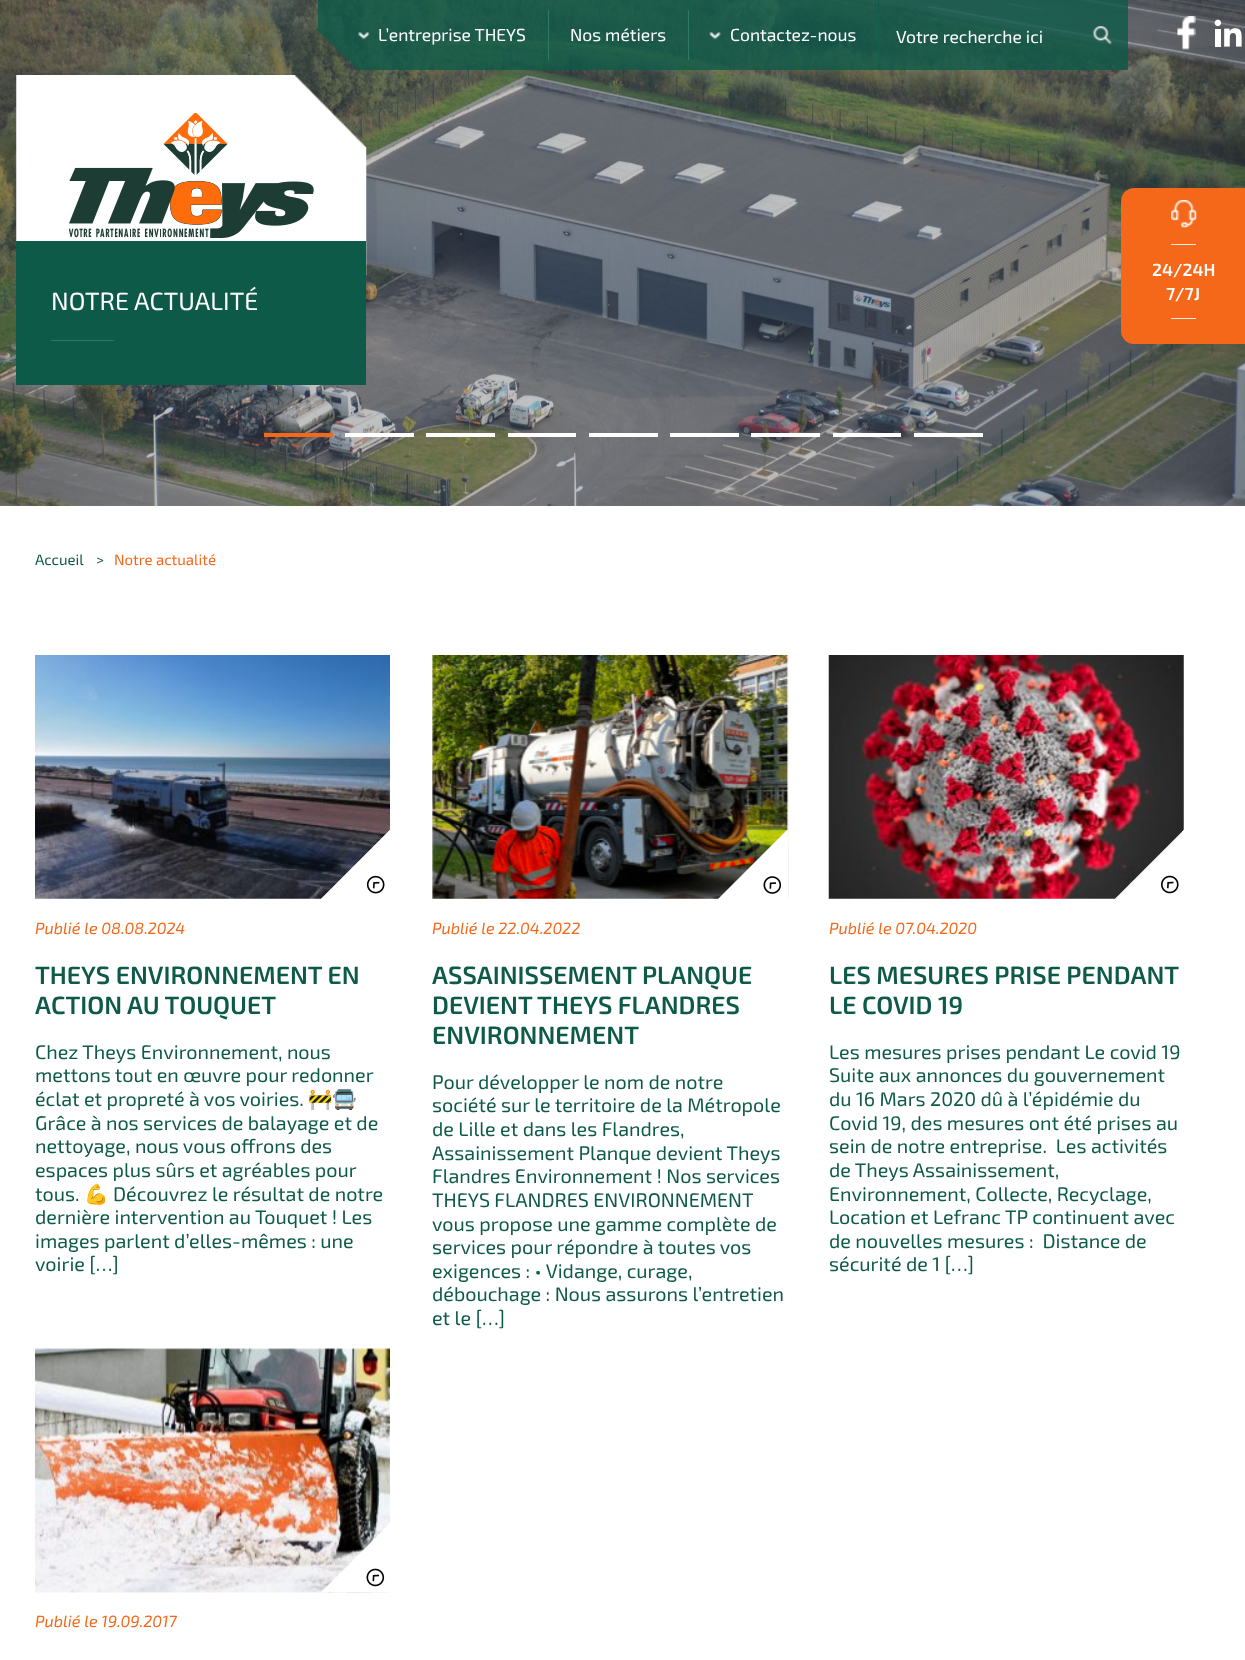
<!DOCTYPE html>
<meta charset="utf-8">
<style>body { margin: 0 } canvas { display: block }</style>
<canvas id="canvas" width="1245" height="1660"></canvas>
<img id="img1" src="img_09.png" hidden>
<img id="img2" src="img_01.png" hidden>
<img id="img3" src="img_02.png" hidden>
<img id="img4" src="img_03.png" hidden>
<img id="img5" src="img_04.png" hidden>
<img id="img6" src="img_05.png" hidden>
<img id="img7" src="img_06.png" hidden>
<img id="img8" src="img_07.png" hidden>
<img id="img9" src="img_08.png" hidden>
<img id="img10" src="img_10.png" hidden>
<img id="img11" src="img_11.png" hidden>
<img id="img12" src="img_12.png" hidden>
<img id="img13" src="img_13.png" hidden>
<img id="img14" src="img_14.png" hidden>
<img id="img15" src="img_15.png" hidden>
<img id="img16" src="img_16.png" hidden>
<img id="img17" src="img_17.png" hidden>
<script>
window.onload = function () {
	const canvas = document.getElementById("canvas");
	const ctx = canvas.getContext("2d");
	ctx.miterLimit = 4;
	ctx.fontKerning = "normal";
	function txt(s, x, y) {
		ctx.fillText(s, x, y);
	}
	function fill(x, y, w, h) {
		ctx.fillRect(x, y, w, h);
	}
	function img(id, x, y, w, h) {
		ctx.drawImage(document.getElementById(id), x, y, w, h);
	}

	ctx.fillStyle = "#FFFFFF";
	fill(0, 0, 1245, 1660);
	img("img1", 0, 0, 1245, 506);
	ctx.fillStyle = "rgba(14, 90, 72, 0.8)";
	fill(359, 0, 520, 70);
	fill(318, 0, 41, 29);
	ctx.beginPath();
	ctx.moveTo(359, 29);
	ctx.lineTo(359, 71);
	ctx.lineTo(316, 29);
	ctx.closePath();
	ctx.fill();
	ctx.fillStyle = "#2C7967";
	fill(548, 10, 1, 50);
	img("img2", 358, 32, 12, 8);
	fill(688, 10, 1, 50);
	fill(878, 10, 1, 50);
	img("img3", 709, 32, 12, 8);
	ctx.fillStyle = "rgba(14, 90, 72, 0.8)";
	fill(878, 0, 250, 70);
	img("img4", 1093, 26, 19, 19);
	img("img5", 1177, 16, 19, 34);
	img("img6", 1214, 19, 28, 28);
	img("img7", 16, 75, 351, 200);
	img("img8", 69, 113, 245, 126);
	ctx.fillStyle = "#F5681A";
	ctx.beginPath();
	ctx.roundRect(1121, 188, 124, 156, [13, 0, 0, 13]);
	ctx.fill();
	img("img9", 1171, 200, 26, 28);
	ctx.fillStyle = "#EEEEEE";
	fill(1171, 244, 25, 1);
	fill(1171, 318, 25, 1);
	ctx.fillStyle = "#F5681A";
	fill(264, 433, 69, 4);
	ctx.fillStyle = "#FFFFFF";
	fill(345, 433, 69, 4);
	fill(426, 433, 69, 4);
	fill(508, 433, 68, 4);
	fill(589, 433, 69, 4);
	fill(670, 433, 69, 4);
	fill(751, 433, 69, 4);
	fill(833, 433, 68, 4);
	fill(914, 433, 69, 4);
	ctx.fillStyle = "#0E5A48";
	fill(16, 241, 350, 144);
	ctx.fillStyle = "#2C7967";
	fill(51, 340, 63, 1);
	img("img10", 35, 655, 355, 244);
	ctx.save();
	ctx.beginPath();
	ctx.rect(35, 655, 355, 244);
	ctx.clip();
	ctx.fillStyle = "#FFFFFF";
	ctx.beginPath();
	ctx.moveTo(459, 899);
	ctx.lineTo(321, 899);
	ctx.lineTo(390, 830);
	ctx.closePath();
	ctx.fill();
	ctx.beginPath();
	ctx.moveTo(390, 830);
	ctx.lineTo(392, 832);
	ctx.lineTo(312, 911);
	ctx.lineTo(311, 909);
	ctx.closePath();
	ctx.fill();
	ctx.beginPath();
	ctx.moveTo(388, 832);
	ctx.lineTo(390, 830);
	ctx.lineTo(469, 909);
	ctx.lineTo(468, 911);
	ctx.closePath();
	ctx.fill();
	ctx.restore();
	img("img11", 366, 875, 19, 19);
	img("img12", 432, 655, 357, 244);
	ctx.save();
	ctx.beginPath();
	ctx.rect(433, 655, 355, 244);
	ctx.clip();
	ctx.fillStyle = "#FFFFFF";
	ctx.beginPath();
	ctx.moveTo(856, 899);
	ctx.lineTo(719, 899);
	ctx.lineTo(788, 830);
	ctx.closePath();
	ctx.fill();
	ctx.beginPath();
	ctx.moveTo(787, 830);
	ctx.lineTo(789, 832);
	ctx.lineTo(709, 911);
	ctx.lineTo(708, 909);
	ctx.closePath();
	ctx.fill();
	ctx.beginPath();
	ctx.moveTo(785, 832);
	ctx.lineTo(787, 830);
	ctx.lineTo(866, 909);
	ctx.lineTo(865, 911);
	ctx.closePath();
	ctx.fill();
	ctx.restore();
	img("img13", 763, 876, 19, 18);
	img("img14", 828, 655, 356, 244);
	ctx.save();
	ctx.beginPath();
	ctx.rect(829, 655, 355, 244);
	ctx.clip();
	ctx.fillStyle = "#FFFFFF";
	ctx.beginPath();
	ctx.moveTo(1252, 899);
	ctx.lineTo(1115, 899);
	ctx.lineTo(1184, 830);
	ctx.closePath();
	ctx.fill();
	ctx.beginPath();
	ctx.moveTo(1184, 830);
	ctx.lineTo(1186, 832);
	ctx.lineTo(1106, 911);
	ctx.lineTo(1105, 909);
	ctx.closePath();
	ctx.fill();
	ctx.beginPath();
	ctx.moveTo(1182, 832);
	ctx.lineTo(1184, 830);
	ctx.lineTo(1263, 909);
	ctx.lineTo(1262, 911);
	ctx.closePath();
	ctx.fill();
	ctx.restore();
	img("img15", 1161, 875, 18, 19);
	img("img16", 35, 1348, 355, 245);
	ctx.save();
	ctx.beginPath();
	ctx.rect(35, 1349, 355, 244);
	ctx.clip();
	ctx.fillStyle = "#FFFFFF";
	ctx.beginPath();
	ctx.moveTo(459, 1592);
	ctx.lineTo(321, 1592);
	ctx.lineTo(390, 1524);
	ctx.closePath();
	ctx.fill();
	ctx.beginPath();
	ctx.moveTo(390, 1523);
	ctx.lineTo(392, 1525);
	ctx.lineTo(312, 1604);
	ctx.lineTo(311, 1603);
	ctx.closePath();
	ctx.fill();
	ctx.beginPath();
	ctx.moveTo(388, 1525);
	ctx.lineTo(390, 1523);
	ctx.lineTo(469, 1603);
	ctx.lineTo(468, 1604);
	ctx.closePath();
	ctx.fill();
	ctx.restore();
	img("img17", 366, 1568, 19, 19);
	ctx.font = "17.5px 'Exo 2'";
	ctx.fillStyle = "#FFFFFF";
	txt("L’entreprise THEYS", 378, 41);
	txt("Nos métiers", 570, 41);
	txt("Contactez-nous", 730, 41);
	txt("Votre recherche ici", 896, 43);
	ctx.font = "600 17.5px 'Exo 2'";
	txt("24/24H", 1152, 276);
	txt("7/7J", 1166, 300);
	ctx.font = "25px 'Exo 2'";
	txt("NOTRE ACTUALITÉ", 51, 310);
	ctx.font = "15px 'Exo 2'";
	ctx.fillStyle = "#0E5A48";
	txt("Accueil", 35, 565);
	txt(">", 96, 565);
	ctx.fillStyle = "#F5681A";
	txt("Notre actualité", 114, 565);
	ctx.font = "italic 16.25px 'Exo 2'";
	txt("Publié le 08.08.2024", 35, 934);
	ctx.font = "600 25px 'Exo 2'";
	ctx.fillStyle = "#0E5A48";
	txt("THEYS ENVIRONNEMENT EN", 35, 984);
	txt("ACTION AU TOUQUET", 35, 1014);
	ctx.font = "19.75px 'Exo 2'";
	txt("Chez Theys Environnement, nous", 35, 1059);
	txt("mettons tout en œuvre pour redonner", 35, 1082);
	txt("éclat et propreté à vos voiries.", 35, 1106);
	ctx.font = "19.75px Noto Color Emoji";
	txt("🚧🚍", 308, 1106);
	ctx.font = "19.75px 'Exo 2'";
	txt("Grâce à nos services de balayage et de", 35, 1130);
	txt("nettoyage, nous vous offrons des", 35, 1153);
	txt("espaces plus sûrs et agréables pour", 35, 1177);
	txt("tous.", 35, 1201);
	ctx.font = "19.75px Noto Color Emoji";
	txt("💪", 84, 1201);
	ctx.font = "19.75px 'Exo 2'";
	txt("Découvrez le résultat de notre", 113, 1201);
	txt("dernière intervention au Touquet ! Les", 35, 1224);
	txt("images parlent d’elles-mêmes : une", 35, 1248);
	txt("voirie […]", 35, 1271);
	ctx.font = "italic 16.25px 'Exo 2'";
	ctx.fillStyle = "#F5681A";
	txt("Publié le 22.04.2022", 432, 934);
	ctx.font = "600 25px 'Exo 2'";
	ctx.fillStyle = "#0E5A48";
	txt("ASSAINISSEMENT PLANQUE", 432, 984);
	txt("DEVIENT THEYS FLANDRES", 432, 1014);
	txt("ENVIRONNEMENT", 432, 1044);
	ctx.font = "19.75px 'Exo 2'";
	txt("Pour développer le nom de notre", 432, 1089);
	txt("société sur le territoire de la Métropole", 432, 1112);
	txt("de Lille et dans les Flandres,", 432, 1136);
	txt("Assainissement Planque devient Theys", 432, 1160);
	txt("Flandres Environnement ! Nos services", 432, 1183);
	txt("THEYS FLANDRES ENVIRONNEMENT", 432, 1207);
	txt("vous propose une gamme complète de", 432, 1231);
	txt("services pour répondre à toutes vos", 432, 1254);
	txt("exigences : • Vidange, curage,", 432, 1278);
	txt("débouchage : Nous assurons l’entretien", 432, 1301);
	txt("et le […]", 432, 1325);
	ctx.font = "italic 16.25px 'Exo 2'";
	ctx.fillStyle = "#F5681A";
	txt("Publié le 07.04.2020", 829, 934);
	ctx.font = "600 25px 'Exo 2'";
	ctx.fillStyle = "#0E5A48";
	txt("LES MESURES PRISE PENDANT", 829, 984);
	txt("LE COVID 19", 829, 1014);
	ctx.font = "19.75px 'Exo 2'";
	txt("Les mesures prises pendant Le covid 19", 829, 1059);
	txt("Suite aux annonces du gouvernement", 829, 1082);
	txt("du 16 Mars 2020 dû à l’épidémie du", 829, 1106);
	txt("Covid 19, des mesures ont été prises au", 829, 1130);
	txt("sein de notre entreprise.  Les activités", 829, 1153);
	txt("de Theys Assainissement,", 829, 1177);
	txt("Environnement, Collecte, Recyclage,", 829, 1201);
	txt("Location et Lefranc TP continuent avec", 829, 1224);
	txt("de nouvelles mesures :  Distance de", 829, 1248);
	txt("sécurité de 1 […]", 829, 1271);
	ctx.font = "italic 16.25px 'Exo 2'";
	ctx.fillStyle = "#F5681A";
	txt("Publié le 19.09.2017", 35, 1627);
};
</script>
